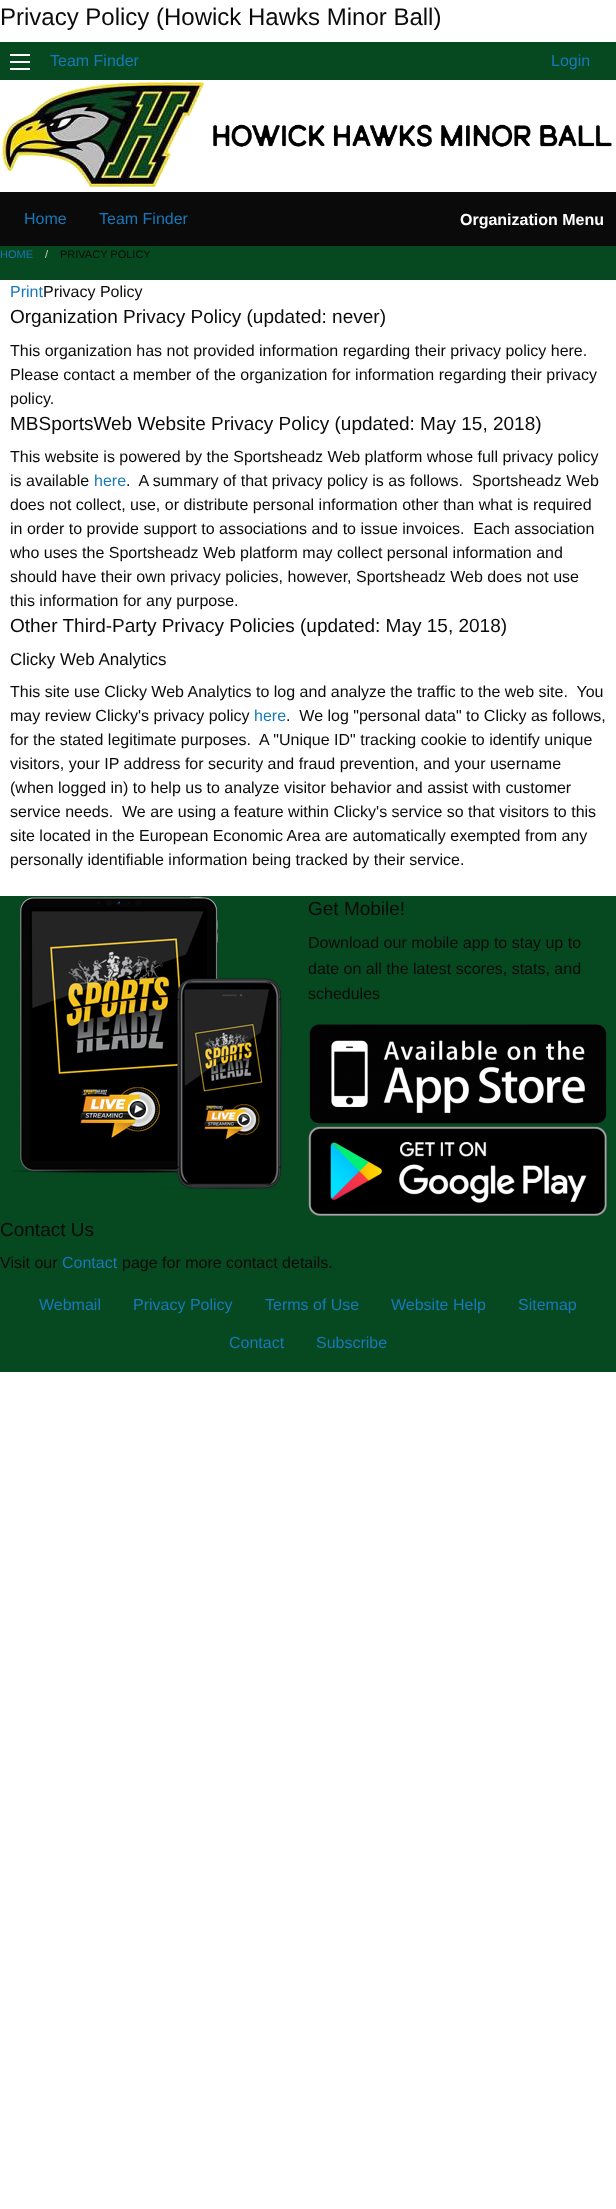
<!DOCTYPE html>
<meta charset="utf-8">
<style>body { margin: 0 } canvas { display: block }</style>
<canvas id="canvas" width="616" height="2209"></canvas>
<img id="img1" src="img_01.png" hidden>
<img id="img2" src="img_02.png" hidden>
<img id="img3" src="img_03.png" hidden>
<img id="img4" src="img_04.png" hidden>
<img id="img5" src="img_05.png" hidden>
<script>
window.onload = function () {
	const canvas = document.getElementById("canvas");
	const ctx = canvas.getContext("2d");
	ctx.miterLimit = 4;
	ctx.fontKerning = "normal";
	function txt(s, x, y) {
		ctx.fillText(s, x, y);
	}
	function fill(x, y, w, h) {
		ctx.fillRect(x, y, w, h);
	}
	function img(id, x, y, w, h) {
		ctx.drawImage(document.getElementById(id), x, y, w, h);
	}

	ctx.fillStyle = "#FFFFFF";
	fill(0, 0, 616, 2209);
	ctx.fillStyle = "#064920";
	fill(0, 42, 616, 1330);
	ctx.fillStyle = "#FEFEFE";
	fill(10, 68, 20, 2);
	fill(10, 61, 20, 2);
	fill(10, 54, 20, 2);
	ctx.fillStyle = "#FFFFFF";
	fill(0, 80, 616, 112);
	img("img1", 1, 82, 203, 105);
	img("img2", 213, 124, 399, 23);
	ctx.fillStyle = "#0A0A0A";
	fill(0, 192, 616, 54);
	ctx.fillStyle = "#FFFFFF";
	fill(0, 280, 616, 616);
	img("img3", 12, 896, 270, 293);
	img("img4", 309, 1024, 298, 100);
	img("img5", 308, 1126, 299, 90);
	ctx.font = "24px Liberation Sans";
	ctx.fillStyle = "#0A0A0A";
	txt("Privacy Policy (Howick Hawks Minor Ball)", 0, 25);
	ctx.font = "16px Liberation Sans";
	ctx.fillStyle = "#1779BA";
	txt("Team Finder", 50, 66);
	txt("Login", 551, 66);
	txt("Home", 24, 224);
	txt("Team Finder", 99, 224);
	ctx.font = "bold 16px Liberation Sans";
	ctx.fillStyle = "#FEFEFE";
	txt("Organization Menu", 460, 225);
	ctx.font = "11px Liberation Sans";
	ctx.fillStyle = "#1779BA";
	txt("HOME", 0, 258);
	ctx.fillStyle = "#CACACA";
	txt("/", 45, 258);
	ctx.fillStyle = "#0A0A0A";
	txt("PRIVACY POLICY", 60, 258);
	ctx.font = "16px Liberation Sans";
	ctx.fillStyle = "#1779BA";
	txt("Print", 10, 297);
	ctx.fillStyle = "#0A0A0A";
	txt("Privacy Policy", 43, 297);
	ctx.font = "19px Liberation Sans";
	txt("Organization Privacy Policy (updated: never)", 10, 323);
	ctx.font = "16px Liberation Sans";
	txt("This organization has not provided information regarding their privacy policy here.", 10, 356);
	txt("Please contact a member of the organization for information regarding their privacy", 10, 380);
	txt("policy.", 10, 404);
	ctx.font = "19px Liberation Sans";
	txt("MBSportsWeb Website Privacy Policy (updated: May 15, 2018)", 10, 430);
	ctx.font = "16px Liberation Sans";
	txt("This website is powered by the Sportsheadz Web platform whose full privacy policy", 10, 462);
	txt("is available", 10, 486);
	ctx.fillStyle = "#1779BA";
	txt("here", 94, 486);
	ctx.fillStyle = "#0A0A0A";
	txt(".  A summary of that privacy policy is as follows.  Sportsheadz Web", 126, 486);
	txt("does not collect, use, or distribute personal information other than what is required", 10, 510);
	txt("in order to provide support to associations and to issue invoices.  Each association", 10, 534);
	txt("who uses the Sportsheadz Web platform may collect personal information and", 10, 558);
	txt("should have their own privacy policies, however, Sportsheadz Web does not use", 10, 582);
	txt("this information for any purpose.", 10, 606);
	ctx.font = "19px Liberation Sans";
	txt("Other Third-Party Privacy Policies (updated: May 15, 2018)", 10, 632);
	ctx.font = "17px Liberation Sans";
	txt("Clicky Web Analytics", 10, 665);
	ctx.font = "16px Liberation Sans";
	txt("This site use Clicky Web Analytics to log and analyze the traffic to the web site.  You", 10, 697);
	txt("may review Clicky's privacy policy", 10, 721);
	ctx.fillStyle = "#1779BA";
	txt("here", 254, 721);
	ctx.fillStyle = "#0A0A0A";
	txt(".  We log \"personal data\" to Clicky as follows,", 286, 721);
	txt("for the stated legitimate purposes.  A \"Unique ID\" tracking cookie to identify unique", 10, 745);
	txt("visitors, your IP address for security and fraud prevention, and your username", 10, 769);
	txt("(when logged in) to help us to analyze visitor behavior and assist with customer", 10, 793);
	txt("service needs.  We are using a feature within Clicky's service so that visitors to this", 10, 817);
	txt("site located in the European Economic Area are automatically exempted from any", 10, 841);
	txt("personally identifiable information being tracked by their service.", 10, 865);
	ctx.font = "19px Liberation Sans";
	txt("Get Mobile!", 308, 915);
	ctx.font = "16px Liberation Sans";
	txt("Download our mobile app to stay up to", 308, 948);
	txt("date on all the latest scores, stats, and", 308, 974);
	txt("schedules", 308, 999);
	ctx.font = "19px Liberation Sans";
	txt("Contact Us", 0, 1236);
	ctx.font = "16px Liberation Sans";
	txt("Visit our", 0, 1268);
	ctx.fillStyle = "#1779BA";
	txt("Contact", 62, 1268);
	ctx.fillStyle = "#0A0A0A";
	txt("page for more contact details.", 122, 1268);
	ctx.fillStyle = "#1779BA";
	txt("Webmail", 39, 1310);
	txt("Privacy Policy", 133, 1310);
	txt("Terms of Use", 265, 1310);
	txt("Website Help", 391, 1310);
	txt("Sitemap", 518, 1310);
	txt("Contact", 229, 1348);
	txt("Subscribe", 316, 1348);
};
</script>
